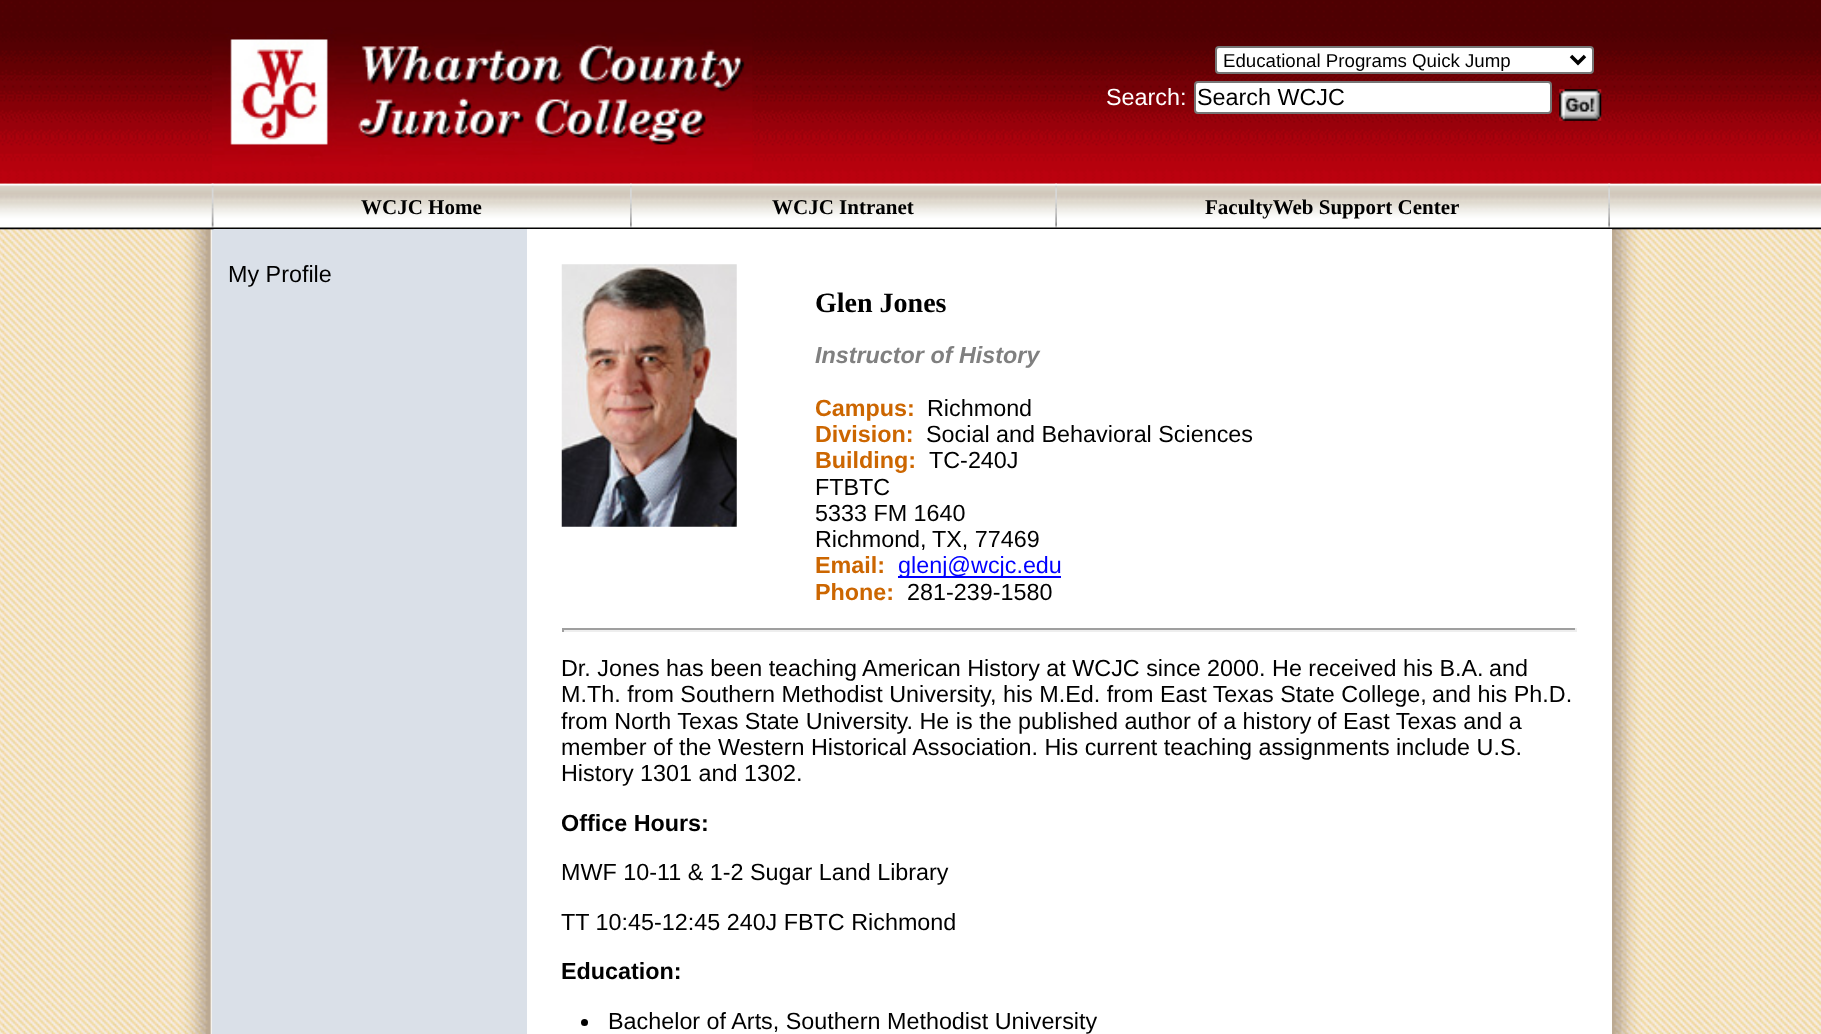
<!DOCTYPE html>
<meta charset="utf-8">
<style>body { margin: 0 } canvas { display: block }</style>
<canvas id="canvas" width="1821" height="1034"></canvas>
<img id="img1" src="img_01.png" hidden>
<img id="img2" src="img_02.png" hidden>
<img id="img3" src="img_03.png" hidden>
<img id="img4" src="img_04.png" hidden>
<img id="img5" src="img_05.png" hidden>
<img id="img6" src="img_06.png" hidden>
<img id="img7" src="img_07.png" hidden>
<img id="img8" src="img_08.png" hidden>
<img id="img9" src="img_09.png" hidden>
<img id="img10" src="img_10.png" hidden>
<script>
window.onload = function () {
	const canvas = document.getElementById("canvas");
	const ctx = canvas.getContext("2d");
	ctx.miterLimit = 4;
	ctx.fontKerning = "normal";
	function txt(s, x, y) {
		ctx.fillText(s, x, y);
	}
	function fill(x, y, w, h) {
		ctx.fillRect(x, y, w, h);
	}
	function img(id, x, y, w, h) {
		ctx.drawImage(document.getElementById(id), x, y, w, h);
	}

	ctx.fillStyle = "#FFFFFF";
	fill(0, 0, 1821, 1034);
	img("img1", 0, 183, 1821, 851);
	img("img2", 0, 0, 1821, 184);
	img("img3", 212, 2, 541, 170);
	ctx.beginPath();
	ctx.roundRect(1216, 47, 377, 26, 3);
	ctx.fill();
	ctx.strokeStyle = "#767676";
	ctx.lineWidth = 2;
	ctx.stroke();
	ctx.beginPath();
	ctx.moveTo(1571, 56);
	ctx.lineTo(1578, 63);
	ctx.lineTo(1585, 56);
	ctx.strokeStyle = "#000000";
	ctx.lineWidth = 3.5;
	ctx.stroke();
	ctx.beginPath();
	ctx.roundRect(1195, 82, 356, 31, 3);
	ctx.fill();
	ctx.strokeStyle = "#767676";
	ctx.lineWidth = 2;
	ctx.stroke();
	img("img4", 1559, 89, 43, 32);
	img("img5", 0, 183, 1821, 47);
	ctx.fillStyle = "#DAE0E8";
	fill(212, 229, 315, 805);
	img("img6", 211, 183, 3, 47);
	img("img7", 630, 183, 2, 46);
	img("img8", 1055, 183, 2, 46);
	img("img9", 1608, 183, 2, 46);
	ctx.fillStyle = "#FFFFFF";
	fill(527, 229, 1085, 805);
	img("img10", 561, 264, 176, 263);
	ctx.fillStyle = "#0000FF";
	fill(898, 576, 163, 2);
	ctx.fillStyle = "#9F9F9F";
	fill(562, 628, 1015, 2);
	ctx.fillStyle = "#EEEEEE";
	fill(1575, 628, 2, 4);
	fill(562, 630, 1015, 2);
	ctx.fillStyle = "#9F9F9F";
	fill(562, 628, 2, 4);
	ctx.fillStyle = "#000000";
	ctx.beginPath();
	ctx.arc(584.5, 1022.5, 3.5, 0, Math.PI * 2);
	ctx.fill();
	ctx.font = "18.7px Liberation Sans";
	txt("Educational Programs Quick Jump", 1223, 67);
	ctx.font = "23.35px Liberation Sans";
	ctx.fillStyle = "#FFFFFF";
	txt("Search:", 1106, 105);
	ctx.fillStyle = "#000000";
	txt("Search WCJC", 1197, 105);
	ctx.font = "bold 21px Liberation Serif";
	txt("WCJC Home", 361, 214);
	txt("WCJC Intranet", 772, 214);
	txt("FacultyWeb Support Center", 1205, 214);
	ctx.font = "23.35px Liberation Sans";
	txt("My Profile", 228, 282);
	ctx.font = "bold 28px Liberation Serif";
	txt("Glen Jones", 815, 312);
	ctx.font = "italic bold 23.35px Liberation Sans";
	ctx.fillStyle = "#808080";
	txt("Instructor of History", 815, 363);
	ctx.font = "bold 23.35px Liberation Sans";
	ctx.fillStyle = "#CC6600";
	txt("Campus:", 815, 416);
	ctx.font = "23.35px Liberation Sans";
	ctx.fillStyle = "#000000";
	txt("Richmond", 927, 416);
	ctx.font = "bold 23.35px Liberation Sans";
	ctx.fillStyle = "#CC6600";
	txt("Division:", 815, 442);
	ctx.font = "23.35px Liberation Sans";
	ctx.fillStyle = "#000000";
	txt("Social and Behavioral Sciences", 926, 442);
	ctx.font = "bold 23.35px Liberation Sans";
	ctx.fillStyle = "#CC6600";
	txt("Building:", 815, 468);
	ctx.font = "23.35px Liberation Sans";
	ctx.fillStyle = "#000000";
	txt("TC-240J", 929, 468);
	txt("FTBTC", 815, 495);
	txt("5333 FM 1640", 815, 521);
	txt("Richmond,", 815, 547);
	txt("TX, 77469", 932, 547);
	ctx.font = "bold 23.35px Liberation Sans";
	ctx.fillStyle = "#CC6600";
	txt("Email:", 815, 573);
	ctx.font = "23.35px Liberation Sans";
	ctx.fillStyle = "#0000FF";
	txt("glenj@wcjc.edu", 898, 573);
	ctx.font = "bold 23.35px Liberation Sans";
	ctx.fillStyle = "#CC6600";
	txt("Phone:", 815, 600);
	ctx.font = "23.35px Liberation Sans";
	ctx.fillStyle = "#000000";
	txt("281-239-1580", 907, 600);
	txt("Dr. Jones has been teaching American History at WCJC since 2000. He received his B.A.", 561, 676);
	txt("and", 1489, 676);
	txt("M.Th. from Southern Methodist University, his M.Ed. from East Texas State College,", 561, 702);
	txt("and his Ph.D.", 1432, 702);
	txt("from North Texas State University. He is the published author of a history", 561, 729);
	txt("of East Texas and a", 1317, 729);
	txt("member of the Western Historical Association. His current teaching assignments include U.S.", 561, 755);
	txt("History 1301 and 1302.", 561, 781);
	ctx.font = "bold 23.35px Liberation Sans";
	txt("Office Hours:", 561, 831);
	ctx.font = "23.35px Liberation Sans";
	txt("MWF 10-11 & 1-2 Sugar Land Library", 561, 880);
	txt("TT 10:45-12:45 240J FBTC Richmond", 561, 930);
	ctx.font = "bold 23.35px Liberation Sans";
	txt("Education:", 561, 979);
	ctx.font = "23.35px Liberation Sans";
	txt("Bachelor of Arts, Southern Methodist University", 608, 1029);
};
</script>
